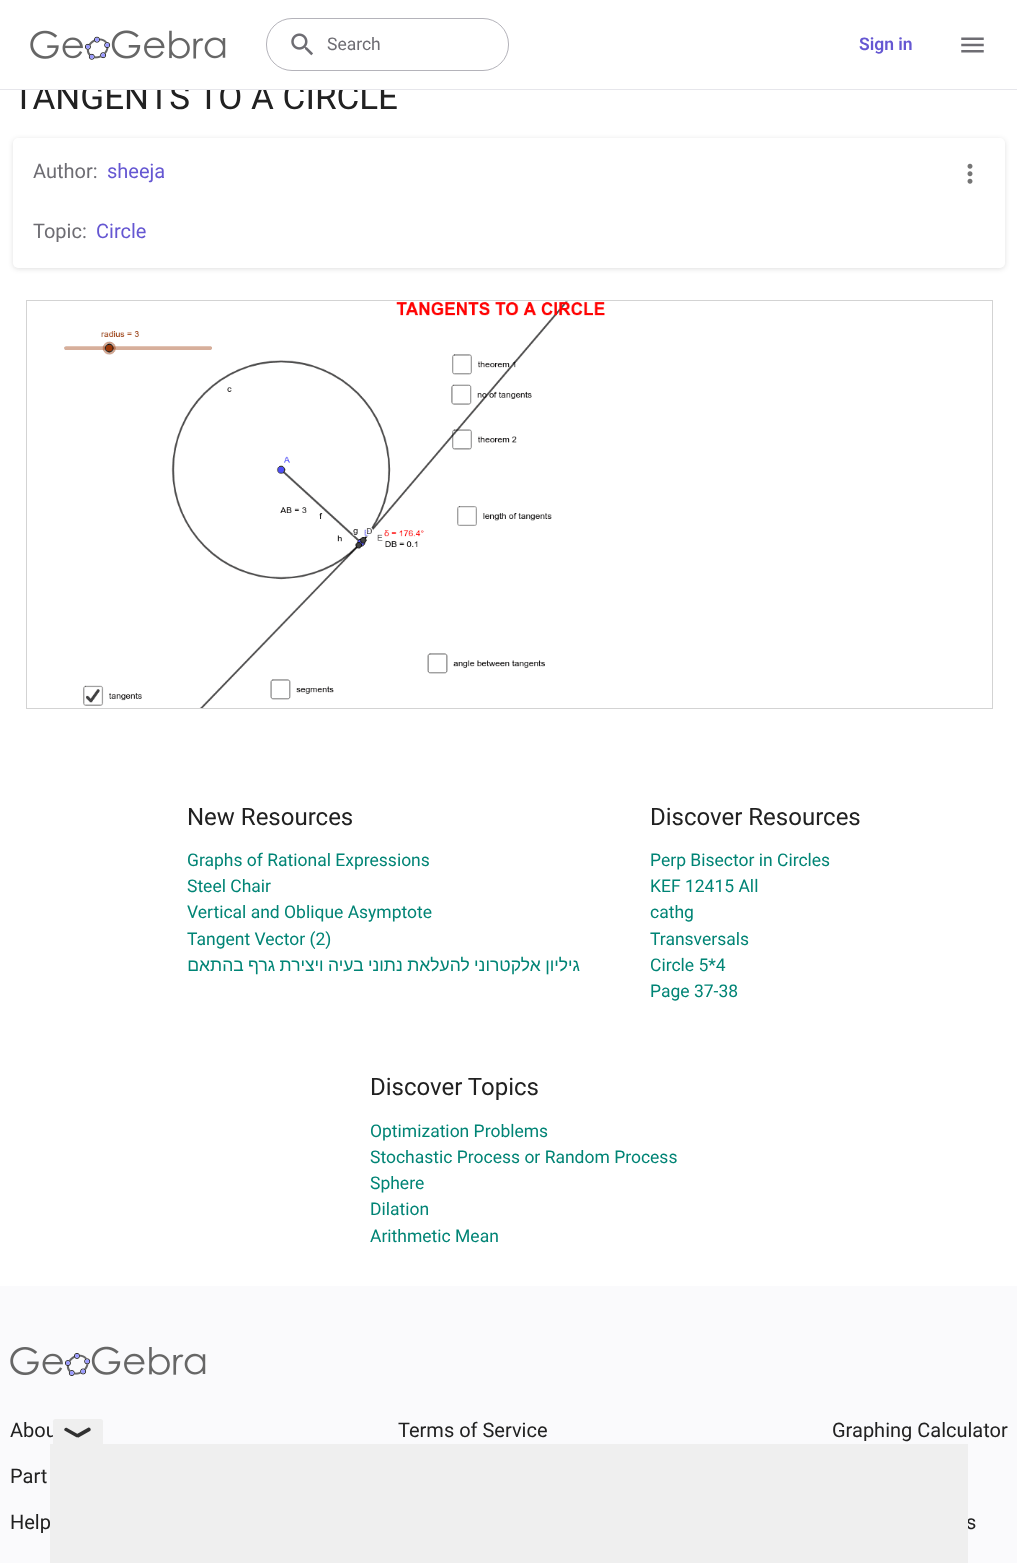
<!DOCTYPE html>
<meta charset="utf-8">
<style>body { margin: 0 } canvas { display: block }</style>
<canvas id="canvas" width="1017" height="1563"></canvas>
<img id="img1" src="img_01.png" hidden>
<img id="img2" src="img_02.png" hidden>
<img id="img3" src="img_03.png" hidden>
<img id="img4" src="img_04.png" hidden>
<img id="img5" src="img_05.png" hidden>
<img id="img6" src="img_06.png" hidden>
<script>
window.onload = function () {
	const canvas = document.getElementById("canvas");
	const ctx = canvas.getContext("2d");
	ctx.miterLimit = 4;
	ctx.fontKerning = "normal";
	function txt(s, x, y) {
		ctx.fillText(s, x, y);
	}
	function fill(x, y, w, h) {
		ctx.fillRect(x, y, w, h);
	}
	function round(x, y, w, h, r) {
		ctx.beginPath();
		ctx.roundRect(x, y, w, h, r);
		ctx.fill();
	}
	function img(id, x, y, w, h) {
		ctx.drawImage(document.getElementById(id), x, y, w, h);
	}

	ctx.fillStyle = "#FFFFFF";
	fill(0, 0, 1017, 1563);
	img("img1", 30, 30, 196, 30);
	ctx.beginPath();
	ctx.roundRect(266.5, 18.5, 242, 52, 25.5);
	ctx.strokeStyle = "#B4B3BA";
	ctx.stroke();
	img("img2", 291, 33, 22, 23);
	img("img3", 961, 37, 23, 16);
	ctx.fillStyle = "rgba(28, 28, 31, 0.14)";
	ctx.filter = "blur(2.5px)";
	ctx.beginPath();
	ctx.roundRect(13, 139, 992, 130, 5);
	ctx.fill();
	ctx.filter = "none";
	ctx.fillStyle = "#FFFFFF";
	round(13, 138, 992, 130, 5);
	img("img4", 967, 163, 6, 21);
	img("img5", 64, 301, 541, 407);
	ctx.strokeStyle = "#D3D3D3";
	ctx.strokeRect(26.5, 300.5, 966, 408);
	ctx.fillStyle = "#FAFAFC";
	fill(0, 1286, 1017, 277);
	img("img6", 10, 1346, 196, 30);
	ctx.font = "17.5px Roboto";
	ctx.fillStyle = "#6E6D73";
	txt("Search", 327, 50);
	ctx.font = "600 17.5px Roboto";
	ctx.fillStyle = "#6557D2";
	txt("Sign in", 859, 50);
	ctx.font = "35px Roboto";
	ctx.fillStyle = "#212121";
	txt("TANGENTS TO A CIRCLE", 13, 109);
	ctx.fillStyle = "#E6E6EB";
	fill(0, 89, 1017, 1);
	ctx.fillStyle = "#FFFFFF";
	fill(13, 83, 384, 6);
	ctx.font = "20px Roboto";
	ctx.fillStyle = "#6E6D73";
	txt("Author:", 33, 178);
	ctx.fillStyle = "#6557D2";
	txt("sheeja", 107, 178);
	ctx.fillStyle = "#6E6D73";
	txt("Topic:", 33, 238);
	ctx.fillStyle = "#6557D2";
	txt("Circle", 96, 238);
	ctx.font = "24px Roboto";
	ctx.fillStyle = "#212121";
	txt("New Resources", 187, 825);
	ctx.font = "17.5px Roboto";
	ctx.fillStyle = "#008475";
	txt("Graphs of Rational Expressions", 187, 866);
	txt("Steel Chair", 187, 892);
	txt("Vertical and Oblique Asymptote", 187, 918);
	txt("Tangent Vector (2)", 187, 945);
	ctx.save();
	ctx.beginPath();
	ctx.rect(188, 953, 392, 26);
	ctx.clip();
	ctx.wordSpacing = "-0.5px";
	ctx.direction = "rtl";
	ctx.font = "17.5px Liberation Sans";
	txt("גיליון אלקטרוני להעלאת נתוני בעיה ויצירת גרף בהתאם", 580, 971);
	ctx.restore();
	ctx.font = "24px Roboto";
	ctx.fillStyle = "#212121";
	txt("Discover Resources", 650, 825);
	ctx.font = "17.5px Roboto";
	ctx.fillStyle = "#008475";
	txt("Perp Bisector in Circles", 650, 866);
	txt("KEF 12415 All", 650, 892);
	txt("cathg", 650, 918);
	txt("Transversals", 650, 945);
	txt("Circle 5*4", 650, 971);
	txt("Page 37-38", 650, 997);
	ctx.font = "24px Roboto";
	ctx.fillStyle = "#212121";
	txt("Discover Topics", 370, 1095);
	ctx.font = "17.5px Roboto";
	ctx.fillStyle = "#008475";
	txt("Optimization Problems", 370, 1137);
	txt("Stochastic Process or Random Process", 370, 1163);
	txt("Sphere", 370, 1189);
	txt("Dilation", 370, 1215);
	txt("Arithmetic Mean", 370, 1242);
	ctx.font = "20px Roboto";
	ctx.fillStyle = "#212121";
	txt("Abou", 10, 1437);
	txt("Part", 10, 1483);
	txt("Help", 10, 1529);
	txt("Terms of Service", 398, 1437);
	txt("Graphing Calculator", 832, 1437);
	txt("s", 966, 1529);
	ctx.fillStyle = "#EFEFEF";
	ctx.beginPath();
	ctx.roundRect(53, 1419, 50, 25, [2.5, 2.5, 0, 0]);
	ctx.fill();
	ctx.fillStyle = "#313131";
	ctx.beginPath();
	ctx.moveTo(67, 1428);
	ctx.lineTo(78.5, 1434.5);
	ctx.bezierCurveTo(79.5, 1436, 77.5, 1438, 76, 1437);
	ctx.lineTo(64.5, 1430.5);
	ctx.bezierCurveTo(63.5, 1429, 65.5, 1427, 67, 1428);
	ctx.closePath();
	ctx.fill();
	ctx.beginPath();
	ctx.moveTo(77, 1434);
	ctx.lineTo(88.5, 1427.5);
	ctx.bezierCurveTo(90.5, 1427.5, 91.5, 1430, 90, 1431);
	ctx.lineTo(78.5, 1437.5);
	ctx.bezierCurveTo(76.5, 1437.5, 75.5, 1435, 77, 1434);
	ctx.closePath();
	ctx.fill();
	ctx.fillStyle = "#EFEFEF";
	fill(50, 1444, 918, 119);
};
</script>
